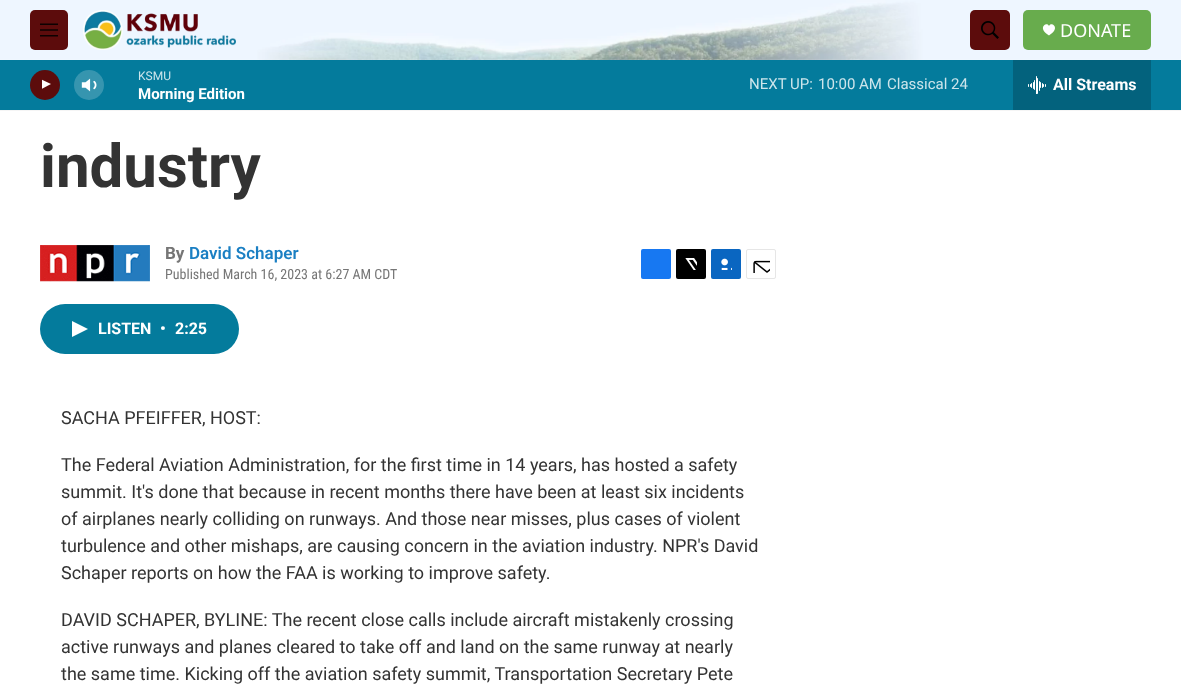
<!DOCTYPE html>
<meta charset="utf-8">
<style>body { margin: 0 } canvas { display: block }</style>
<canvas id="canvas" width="1181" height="686"></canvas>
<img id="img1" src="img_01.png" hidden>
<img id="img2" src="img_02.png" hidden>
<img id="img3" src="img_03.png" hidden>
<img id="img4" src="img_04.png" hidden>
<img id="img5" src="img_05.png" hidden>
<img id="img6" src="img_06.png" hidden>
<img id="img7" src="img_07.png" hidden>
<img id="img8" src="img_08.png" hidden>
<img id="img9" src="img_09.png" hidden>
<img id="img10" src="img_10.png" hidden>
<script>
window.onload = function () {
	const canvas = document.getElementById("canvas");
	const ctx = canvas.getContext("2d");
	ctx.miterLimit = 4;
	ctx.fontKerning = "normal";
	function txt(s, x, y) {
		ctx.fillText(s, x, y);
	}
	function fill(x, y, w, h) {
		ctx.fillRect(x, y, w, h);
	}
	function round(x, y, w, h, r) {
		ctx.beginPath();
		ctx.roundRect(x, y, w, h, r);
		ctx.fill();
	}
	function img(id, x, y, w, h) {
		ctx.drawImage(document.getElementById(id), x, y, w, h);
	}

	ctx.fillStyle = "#FFFFFF";
	fill(0, 0, 1181, 686);
	ctx.fillStyle = "#F5F5F5";
	fill(0, 110, 1181, 1);
	img("img1", 0, 0, 1181, 60);
	ctx.fillStyle = "#5C0C0C";
	round(30, 10, 38, 40, 5);
	img("img2", 40, 23, 18, 14);
	img("img3", 83, 10, 153, 40);
	round(970, 10, 40, 40, 5);
	img("img4", 981, 21, 18, 18);
	ctx.fillStyle = "#68AC4D";
	round(1023, 10, 128, 40, 5);
	ctx.fillStyle = "#FFFFFF";
	ctx.beginPath();
	ctx.moveTo(1049, 26);
	ctx.bezierCurveTo(1047, 21, 1036.5, 28, 1049, 35.5);
	ctx.bezierCurveTo(1061.5, 28, 1051, 21, 1049, 26);
	ctx.closePath();
	ctx.fill();
	ctx.fillStyle = "#047B9C";
	fill(0, 60, 1181, 50);
	ctx.fillStyle = "#5C0C0C";
	ctx.beginPath();
	ctx.arc(45, 85, 15, 0, Math.PI * 2);
	ctx.fill();
	ctx.save();
	ctx.beginPath();
	ctx.rect(42, 78, 12, 15);
	ctx.clip();
	ctx.fillStyle = "#FFFFFF";
	ctx.beginPath();
	ctx.moveTo(41.5, 79.5);
	ctx.lineTo(51, 84);
	ctx.lineTo(41.5, 89);
	ctx.closePath();
	ctx.fill();
	ctx.restore();
	img("img5", 81, 78, 16, 14);
	ctx.fillStyle = "rgba(255, 255, 255, 0.2)";
	ctx.beginPath();
	ctx.arc(89, 85, 15, 0, Math.PI * 2);
	ctx.fill();
	ctx.fillStyle = "#03627D";
	fill(1013, 60, 138, 50);
	img("img6", 1028, 76, 18, 18);
	img("img7", 40, 245, 110, 37);
	ctx.fillStyle = "#1778F2";
	round(641, 249, 30, 30, 2);
	ctx.fillStyle = "#000000";
	round(676, 249, 30, 30, 2);
	img("img8", 685, 258, 12, 12);
	ctx.fillStyle = "#0A66C1";
	round(711, 249, 30, 30, 2);
	img("img9", 721, 258, 11, 12);
	ctx.beginPath();
	ctx.roundRect(746.5, 249.5, 29, 29, 1.5);
	ctx.strokeStyle = "#E6E6E6";
	ctx.stroke();
	img("img10", 753, 260, 17, 13);
	ctx.fillStyle = "#047B9C";
	round(40, 304, 199, 50, 25);
	ctx.fillStyle = "#FFFFFF";
	ctx.beginPath();
	ctx.moveTo(72, 321);
	ctx.lineTo(88, 329);
	ctx.lineTo(72, 337);
	ctx.closePath();
	ctx.fill();
	ctx.font = "18px Noto Sans";
	txt("DONATE", 1060, 37);
	ctx.font = "12px Roboto";
	ctx.fillStyle = "#CDE5EB";
	txt("KSMU", 138, 80);
	ctx.font = "bold 15px 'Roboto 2'";
	ctx.fillStyle = "#FFFFFF";
	txt("Morning Edition", 138, 99);
	ctx.font = "15px Roboto";
	ctx.fillStyle = "#CDE5EB";
	txt("NEXT UP:", 749, 89);
	txt("10:00 AM", 818, 89);
	txt("Classical 24", 887, 89);
	ctx.font = "bold 16px 'Roboto 2'";
	ctx.fillStyle = "#FFFFFF";
	txt("All Streams", 1053, 90);
	ctx.font = "bold 60px Roboto";
	ctx.fillStyle = "#333333";
	txt("industry", 40, 187);
	ctx.font = "bold 17px Roboto";
	ctx.fillStyle = "#767676";
	txt("By", 165, 259);
	ctx.font = "600 17px Roboto";
	ctx.fillStyle = "#1A7FC3";
	txt("David Schaper", 189, 259);
	ctx.font = "14px Roboto Condensed";
	ctx.fillStyle = "#767676";
	txt("Published March 16, 2023 at 6:27 AM CDT", 165, 279);
	ctx.font = "bold 16px 'Roboto 2'";
	ctx.fillStyle = "#FFFFFF";
	txt("LISTEN", 98, 334);
	txt("•", 160, 334);
	txt("2:25", 175, 334);
	ctx.font = "18px Roboto";
	ctx.fillStyle = "#333333";
	txt("SACHA PFEIFFER, HOST:", 61, 424);
	txt("The Federal Aviation Administration, for the first time in 14 years, has hosted a safety", 61, 471);
	txt("summit. It's done that because in recent months there have been at least six incidents", 61, 498);
	txt("of airplanes nearly colliding on runways. And those near misses, plus cases of violent", 61, 525);
	txt("turbulence and other mishaps, are causing concern in the aviation industry. NPR's David", 61, 552);
	txt("Schaper reports on how the FAA is working to improve safety.", 61, 579);
	txt("DAVID SCHAPER, BYLINE: The recent close calls include aircraft mistakenly crossing", 61, 626);
	txt("active runways and planes cleared to take off and land on the same runway at nearly", 61, 653);
	txt("the same time. Kicking off the aviation safety summit, Transportation Secretary Pete", 61, 680);
};
</script>
